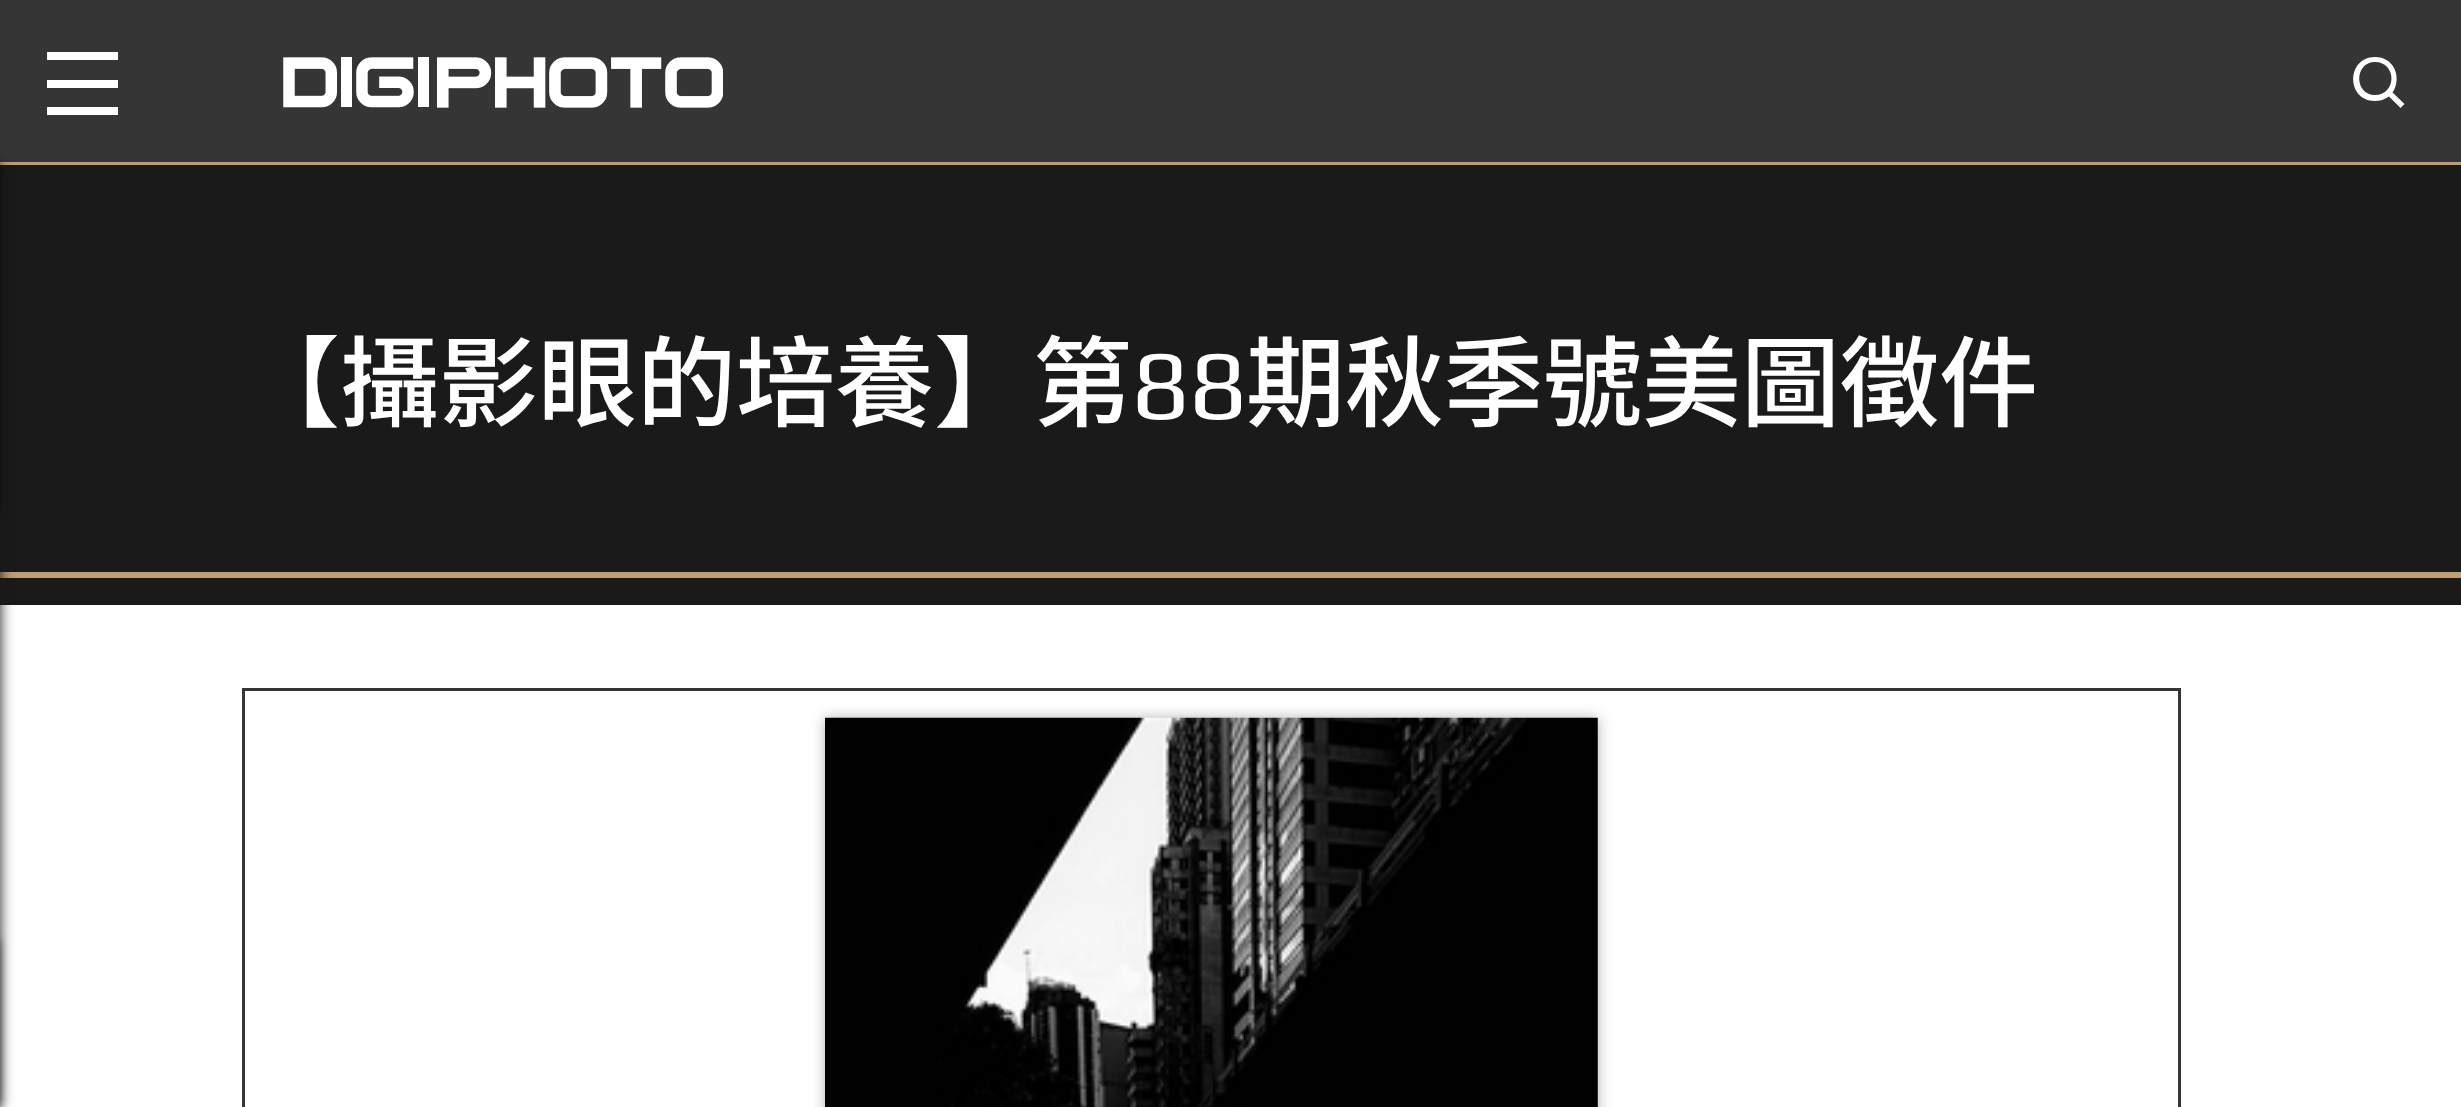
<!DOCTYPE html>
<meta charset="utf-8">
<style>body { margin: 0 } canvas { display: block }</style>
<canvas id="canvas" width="2461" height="1107"></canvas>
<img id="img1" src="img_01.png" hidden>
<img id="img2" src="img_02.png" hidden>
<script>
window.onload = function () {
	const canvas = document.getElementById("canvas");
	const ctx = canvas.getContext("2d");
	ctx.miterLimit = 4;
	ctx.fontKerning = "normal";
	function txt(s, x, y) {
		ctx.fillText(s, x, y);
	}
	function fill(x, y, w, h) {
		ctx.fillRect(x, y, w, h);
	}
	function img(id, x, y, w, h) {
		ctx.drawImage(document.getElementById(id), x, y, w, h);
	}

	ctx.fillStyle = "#FFFFFF";
	fill(0, 0, 2461, 1107);
	ctx.fillStyle = "#353535";
	fill(0, 0, 2461, 162);
	ctx.fillStyle = "#C09E70";
	fill(0, 162, 2461, 3);
	ctx.fillStyle = "#FFFFFF";
	fill(47, 52, 71, 8);
	fill(47, 80, 71, 8);
	fill(47, 107, 71, 8);
	img("img1", 283, 57, 440, 51);
	ctx.beginPath();
	ctx.moveTo(2375, 101);
	ctx.bezierCurveTo(2346, 101, 2346, 57, 2375, 57);
	ctx.bezierCurveTo(2404, 57, 2404, 101, 2375, 101);
	ctx.closePath();
	ctx.moveTo(2375, 62);
	ctx.bezierCurveTo(2354, 62, 2354, 95, 2375, 95);
	ctx.bezierCurveTo(2397, 95, 2397, 62, 2375, 62);
	ctx.closePath();
	ctx.fill();
	ctx.beginPath();
	ctx.moveTo(2387, 94.5);
	ctx.lineTo(2390.5, 90.5);
	ctx.lineTo(2404.5, 104);
	ctx.lineTo(2400.5, 108);
	ctx.closePath();
	ctx.fill();
	ctx.fillStyle = "#1A1A1A";
	fill(0, 165, 2461, 440);
	ctx.fillStyle = "#C09E70";
	fill(0, 572, 2461, 6);
	ctx.fillStyle = "#1A1A1A";
	ctx.filter = "blur(7px)";
	ctx.beginPath();
	ctx.rect(-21, 165, 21, 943);
	ctx.fill();
	ctx.filter = "none";
	ctx.fillStyle = "rgba(0, 0, 0, 0.45)";
	ctx.filter = "blur(4px)";
	ctx.beginPath();
	ctx.rect(-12, 165, 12, 349);
	ctx.fill();
	ctx.filter = "none";
	ctx.filter = "blur(4px)";
	ctx.beginPath();
	ctx.rect(-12, 941, 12, 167);
	ctx.fill();
	ctx.filter = "none";
	ctx.strokeStyle = "#353535";
	ctx.lineWidth = 3;
	ctx.strokeRect(243.5, 689.5, 1936, 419);
	ctx.fillStyle = "rgba(0, 0, 0, 0.3)";
	ctx.filter = "blur(7px)";
	ctx.beginPath();
	ctx.rect(825, 718, 773, 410);
	ctx.fill();
	ctx.filter = "none";
	img("img2", 825, 717, 773, 390);
	ctx.font = "500 99px Noto Sans TC";
	ctx.fillStyle = "#FFFFFF";
	txt("【攝影眼的培養】第", 241, 419);
	ctx.font = "99px Play";
	txt("88", 1132, 419);
	ctx.font = "500 99px Noto Sans TC";
	txt("期秋季號美圖徵件", 1246, 419);
};
</script>
